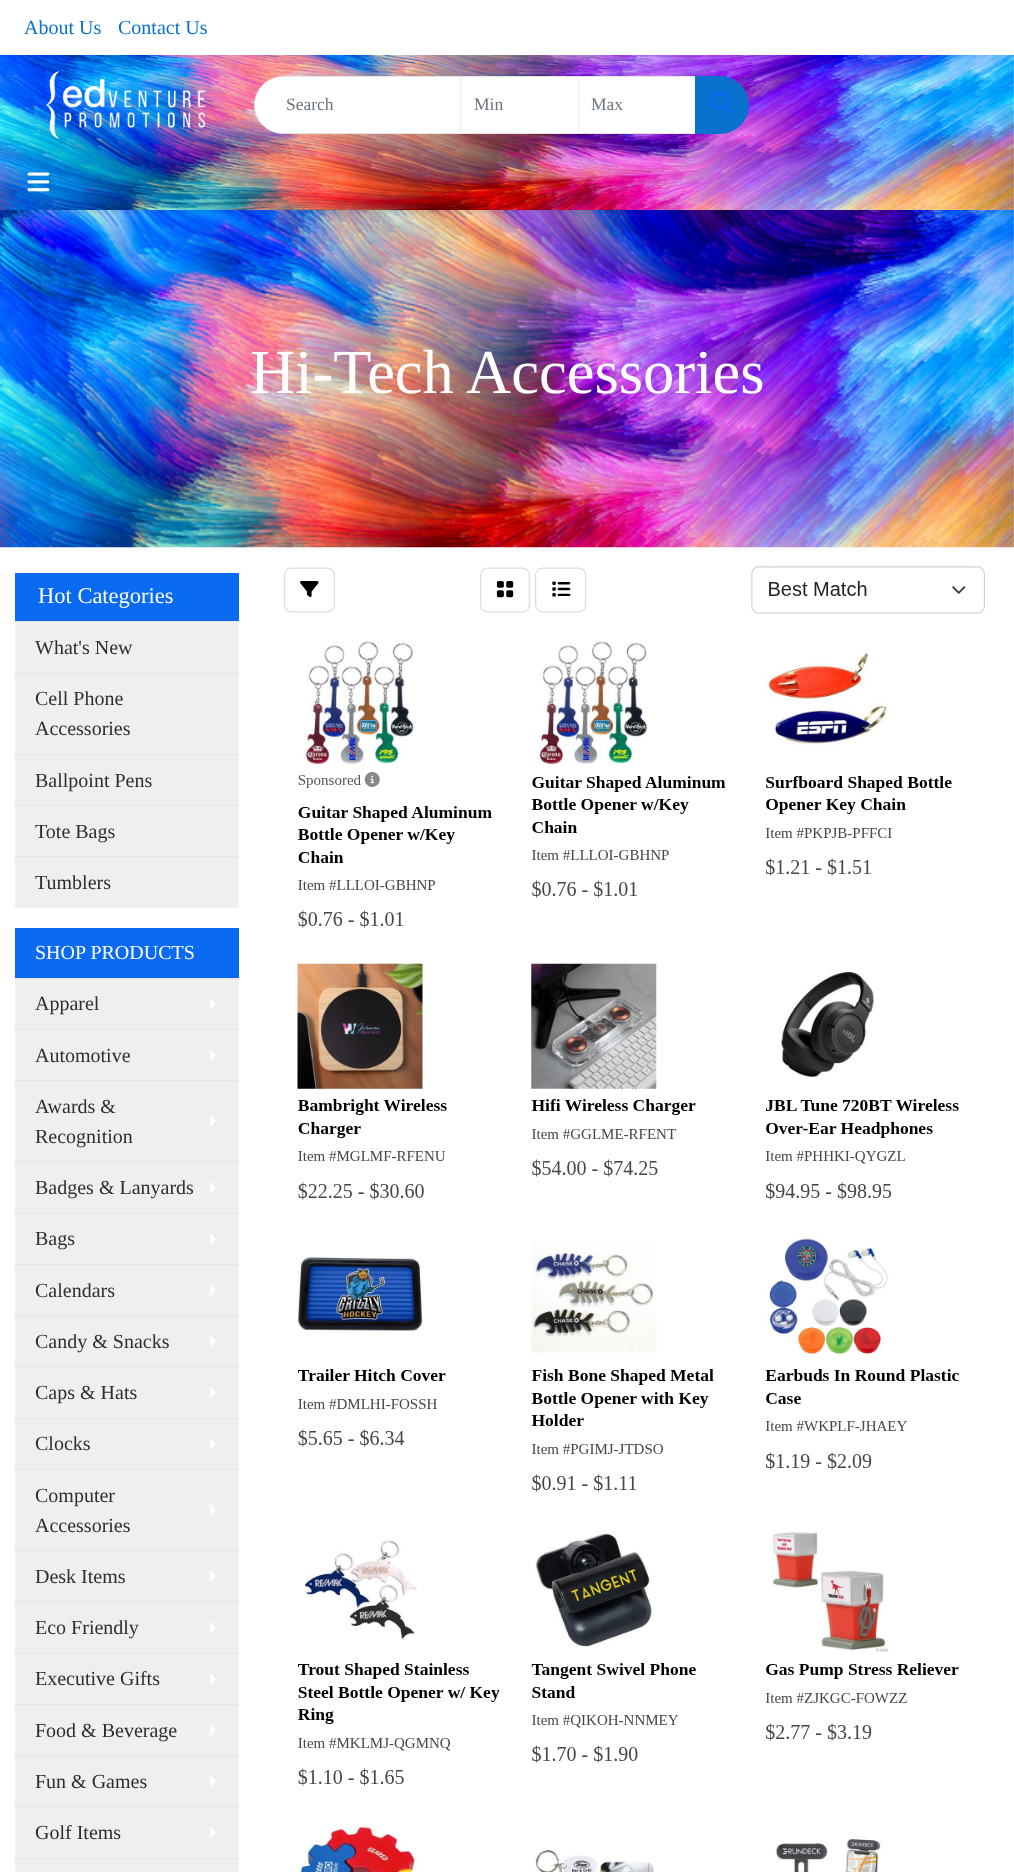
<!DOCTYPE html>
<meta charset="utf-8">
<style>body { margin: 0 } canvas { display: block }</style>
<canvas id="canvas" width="1014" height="1872"></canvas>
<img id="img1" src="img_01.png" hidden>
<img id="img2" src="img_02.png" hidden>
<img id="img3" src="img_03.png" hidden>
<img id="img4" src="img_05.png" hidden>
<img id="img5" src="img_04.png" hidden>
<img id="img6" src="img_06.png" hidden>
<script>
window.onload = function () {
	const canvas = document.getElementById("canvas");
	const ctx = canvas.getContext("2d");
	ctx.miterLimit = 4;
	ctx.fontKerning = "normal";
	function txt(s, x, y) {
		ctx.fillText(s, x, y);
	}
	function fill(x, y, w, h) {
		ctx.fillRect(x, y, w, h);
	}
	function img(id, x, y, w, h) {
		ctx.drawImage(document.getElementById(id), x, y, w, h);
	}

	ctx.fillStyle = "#FFFFFF";
	fill(0, 0, 1014, 1872);
	img("img1", 0, 55, 1014, 155);
	img("img2", 45, 71, 161, 68);
	ctx.beginPath();
	ctx.roundRect(254.5, 76.5, 206, 57, [28.5, 0, 0, 28.5]);
	ctx.fill();
	ctx.strokeStyle = "#E4E4E4";
	ctx.stroke();
	fill(461, 77, 117, 56);
	ctx.fillStyle = "#E4E4E4";
	fill(460, 76, 236, 1);
	fill(460, 133, 236, 1);
	ctx.fillStyle = "#EFEFEF";
	fill(460, 76, 1, 58);
	ctx.fillStyle = "#FFFFFF";
	fill(579, 77, 116, 56);
	ctx.fillStyle = "#EFEFEF";
	fill(578, 76, 1, 58);
	ctx.fillStyle = "#0971CE";
	ctx.beginPath();
	ctx.roundRect(695, 78, 53, 55, [0, 27.5, 27.5, 0]);
	ctx.fill();
	ctx.beginPath();
	ctx.moveTo(695, 76);
	ctx.lineTo(720, 76);
	ctx.bezierCurveTo(736, 76, 749, 89, 749, 105);
	ctx.bezierCurveTo(749, 121, 736, 134, 720, 134);
	ctx.lineTo(695, 134);
	ctx.closePath();
	ctx.moveTo(695, 78);
	ctx.lineTo(720, 78);
	ctx.bezierCurveTo(735, 78, 748, 90, 748, 105);
	ctx.bezierCurveTo(748, 120, 735, 132, 720, 132);
	ctx.lineTo(695, 132);
	ctx.closePath();
	ctx.fill("evenodd");
	img("img3", 710, 91, 23, 23);
	img("img4", 0, 210, 1014, 338);
	ctx.save();
	ctx.beginPath();
	ctx.rect(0, 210, 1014, 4);
	ctx.clip();
	ctx.fillStyle = "rgba(0, 0, 0, 0.07)";
	ctx.filter = "blur(2.5px)";
	ctx.beginPath();
	ctx.rect(0, 158, 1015, 55);
	ctx.fill();
	ctx.filter = "none";
	ctx.restore();
	img("img5", 27, 172, 23, 20);
	ctx.fillStyle = "#0A6BF2";
	fill(15, 573, 224, 48);
	ctx.fillStyle = "#EFEFEF";
	fill(15, 622, 224, 51);
	ctx.fillStyle = "#E5E5E5";
	fill(15, 621, 224, 1);
	ctx.fillStyle = "#EFEFEF";
	fill(15, 674, 224, 80);
	ctx.fillStyle = "#E5E5E5";
	fill(15, 673, 224, 1);
	ctx.fillStyle = "#EFEFEF";
	fill(15, 755, 224, 50);
	ctx.fillStyle = "#E5E5E5";
	fill(15, 754, 224, 1);
	ctx.fillStyle = "#EFEFEF";
	fill(15, 806, 224, 50);
	ctx.fillStyle = "#E5E5E5";
	fill(15, 805, 224, 1);
	ctx.fillStyle = "#EFEFEF";
	fill(15, 857, 224, 51);
	ctx.fillStyle = "#E5E5E5";
	fill(15, 856, 224, 1);
	ctx.fillStyle = "#0A6BF2";
	fill(15, 928, 224, 50);
	ctx.fillStyle = "#EFEFEF";
	fill(15, 979, 224, 50);
	ctx.fillStyle = "#E5E5E5";
	fill(15, 978, 224, 1);
	ctx.fillStyle = "#FFFFFF";
	ctx.beginPath();
	ctx.moveTo(210, 1010);
	ctx.lineTo(210, 997.5);
	ctx.lineTo(216, 1004);
	ctx.closePath();
	ctx.fill();
	ctx.fillStyle = "#EFEFEF";
	fill(15, 1030, 224, 50);
	ctx.fillStyle = "#E5E5E5";
	fill(15, 1029, 224, 1);
	ctx.fillStyle = "#FFFFFF";
	ctx.beginPath();
	ctx.moveTo(210, 1061);
	ctx.lineTo(210, 1049);
	ctx.lineTo(216, 1055);
	ctx.closePath();
	ctx.fill();
	ctx.fillStyle = "#EFEFEF";
	fill(15, 1081, 224, 80);
	ctx.fillStyle = "#E5E5E5";
	fill(15, 1080, 224, 1);
	ctx.fillStyle = "#FFFFFF";
	ctx.beginPath();
	ctx.moveTo(210, 1127.5);
	ctx.lineTo(210, 1115);
	ctx.lineTo(216, 1121);
	ctx.closePath();
	ctx.fill();
	ctx.fillStyle = "#EFEFEF";
	fill(15, 1162, 224, 51);
	ctx.fillStyle = "#E5E5E5";
	fill(15, 1161, 224, 1);
	ctx.fillStyle = "#FFFFFF";
	ctx.beginPath();
	ctx.moveTo(210, 1194);
	ctx.lineTo(210, 1181);
	ctx.lineTo(216, 1187.5);
	ctx.closePath();
	ctx.fill();
	ctx.fillStyle = "#EFEFEF";
	fill(15, 1214, 224, 50);
	ctx.fillStyle = "#E5E5E5";
	fill(15, 1213, 224, 1);
	ctx.fillStyle = "#FFFFFF";
	ctx.beginPath();
	ctx.moveTo(210, 1245);
	ctx.lineTo(210, 1232.5);
	ctx.lineTo(216, 1239);
	ctx.closePath();
	ctx.fill();
	ctx.fillStyle = "#EFEFEF";
	fill(15, 1265, 224, 50);
	ctx.fillStyle = "#E5E5E5";
	fill(15, 1264, 224, 1);
	ctx.fillStyle = "#FFFFFF";
	ctx.beginPath();
	ctx.moveTo(210, 1296);
	ctx.lineTo(210, 1284);
	ctx.lineTo(216, 1290);
	ctx.closePath();
	ctx.fill();
	ctx.fillStyle = "#EFEFEF";
	fill(15, 1316, 224, 50);
	ctx.fillStyle = "#E5E5E5";
	fill(15, 1315, 224, 1);
	ctx.fillStyle = "#FFFFFF";
	ctx.beginPath();
	ctx.moveTo(210, 1347.5);
	ctx.lineTo(210, 1335);
	ctx.lineTo(216, 1341);
	ctx.closePath();
	ctx.fill();
	ctx.fillStyle = "#EFEFEF";
	fill(15, 1367, 224, 51);
	ctx.fillStyle = "#E5E5E5";
	fill(15, 1366, 224, 1);
	ctx.fillStyle = "#FFFFFF";
	ctx.beginPath();
	ctx.moveTo(210, 1399);
	ctx.lineTo(210, 1386);
	ctx.lineTo(216, 1392.5);
	ctx.closePath();
	ctx.fill();
	ctx.fillStyle = "#EFEFEF";
	fill(15, 1419, 224, 50);
	ctx.fillStyle = "#E5E5E5";
	fill(15, 1418, 224, 1);
	ctx.fillStyle = "#FFFFFF";
	ctx.beginPath();
	ctx.moveTo(210, 1450);
	ctx.lineTo(210, 1437.5);
	ctx.lineTo(216, 1444);
	ctx.closePath();
	ctx.fill();
	ctx.fillStyle = "#EFEFEF";
	fill(15, 1470, 224, 80);
	ctx.fillStyle = "#E5E5E5";
	fill(15, 1469, 224, 1);
	ctx.fillStyle = "#FFFFFF";
	ctx.beginPath();
	ctx.moveTo(210, 1516);
	ctx.lineTo(210, 1504);
	ctx.lineTo(216, 1510);
	ctx.closePath();
	ctx.fill();
	ctx.fillStyle = "#EFEFEF";
	fill(15, 1551, 224, 50);
	ctx.fillStyle = "#E5E5E5";
	fill(15, 1550, 224, 1);
	ctx.fillStyle = "#FFFFFF";
	ctx.beginPath();
	ctx.moveTo(210, 1582.5);
	ctx.lineTo(210, 1570);
	ctx.lineTo(216, 1576);
	ctx.closePath();
	ctx.fill();
	ctx.fillStyle = "#EFEFEF";
	fill(15, 1602, 224, 51);
	ctx.fillStyle = "#E5E5E5";
	fill(15, 1601, 224, 1);
	ctx.fillStyle = "#FFFFFF";
	ctx.beginPath();
	ctx.moveTo(210, 1634);
	ctx.lineTo(210, 1621);
	ctx.lineTo(216, 1627.5);
	ctx.closePath();
	ctx.fill();
	ctx.fillStyle = "#EFEFEF";
	fill(15, 1654, 224, 50);
	ctx.fillStyle = "#E5E5E5";
	fill(15, 1653, 224, 1);
	ctx.fillStyle = "#FFFFFF";
	ctx.beginPath();
	ctx.moveTo(210, 1685);
	ctx.lineTo(210, 1672.5);
	ctx.lineTo(216, 1679);
	ctx.closePath();
	ctx.fill();
	ctx.fillStyle = "#EFEFEF";
	fill(15, 1705, 224, 50);
	ctx.fillStyle = "#E5E5E5";
	fill(15, 1704, 224, 1);
	ctx.fillStyle = "#FFFFFF";
	ctx.beginPath();
	ctx.moveTo(210, 1736);
	ctx.lineTo(210, 1724);
	ctx.lineTo(216, 1730);
	ctx.closePath();
	ctx.fill();
	ctx.fillStyle = "#EFEFEF";
	fill(15, 1756, 224, 50);
	ctx.fillStyle = "#E5E5E5";
	fill(15, 1755, 224, 1);
	ctx.fillStyle = "#FFFFFF";
	ctx.beginPath();
	ctx.moveTo(210, 1787.5);
	ctx.lineTo(210, 1775);
	ctx.lineTo(216, 1781);
	ctx.closePath();
	ctx.fill();
	ctx.fillStyle = "#EFEFEF";
	fill(15, 1807, 224, 51);
	ctx.fillStyle = "#E5E5E5";
	fill(15, 1806, 224, 1);
	ctx.fillStyle = "#FFFFFF";
	ctx.beginPath();
	ctx.moveTo(210, 1839);
	ctx.lineTo(210, 1826);
	ctx.lineTo(216, 1832.5);
	ctx.closePath();
	ctx.fill();
	ctx.fillStyle = "#EFEFEF";
	fill(15, 1859, 224, 13);
	ctx.fillStyle = "#E5E5E5";
	fill(15, 1858, 224, 1);
	img("img6", 283, 566, 702, 1306);
	ctx.font = "20px Liberation Serif";
	ctx.fillStyle = "#0971CE";
	txt("About Us", 24, 34);
	txt("Contact Us", 118, 34);
	ctx.font = "17.5px Liberation Serif";
	ctx.fillStyle = "#6C757D";
	txt("Search", 286, 110);
	txt("Min", 474, 110);
	txt("Max", 591, 110);
	ctx.font = "62.5px Liberation Serif";
	ctx.fillStyle = "#FFFFFF";
	txt("Hi-Tech Accessories", 250, 393);
	ctx.font = "22.5px Liberation Serif";
	txt("Hot Categories", 38, 603);
	ctx.font = "20px Liberation Serif";
	ctx.fillStyle = "#2E2E2E";
	txt("What's New", 35, 654);
	txt("Cell Phone", 35, 705);
	txt("Accessories", 35, 735);
	txt("Ballpoint Pens", 35, 787);
	txt("Tote Bags", 35, 838);
	txt("Tumblers", 35, 889);
	ctx.fillStyle = "#FFFFFF";
	txt("SHOP PRODUCTS", 35, 959);
	ctx.fillStyle = "#2E2E2E";
	txt("Apparel", 35, 1010);
	txt("Automotive", 35, 1062);
	txt("Awards &", 35, 1113);
	txt("Recognition", 35, 1143);
	txt("Badges & Lanyards", 35, 1194);
	txt("Bags", 35, 1245);
	txt("Calendars", 35, 1297);
	txt("Candy & Snacks", 35, 1348);
	txt("Caps & Hats", 35, 1399);
	txt("Clocks", 35, 1450);
	txt("Computer", 35, 1502);
	txt("Accessories", 35, 1532);
	txt("Desk Items", 35, 1583);
	txt("Eco Friendly", 35, 1634);
	txt("Executive Gifts", 35, 1685);
	txt("Food & Beverage", 35, 1737);
	txt("Fun & Games", 35, 1788);
	txt("Golf Items", 35, 1839);
};
</script>
